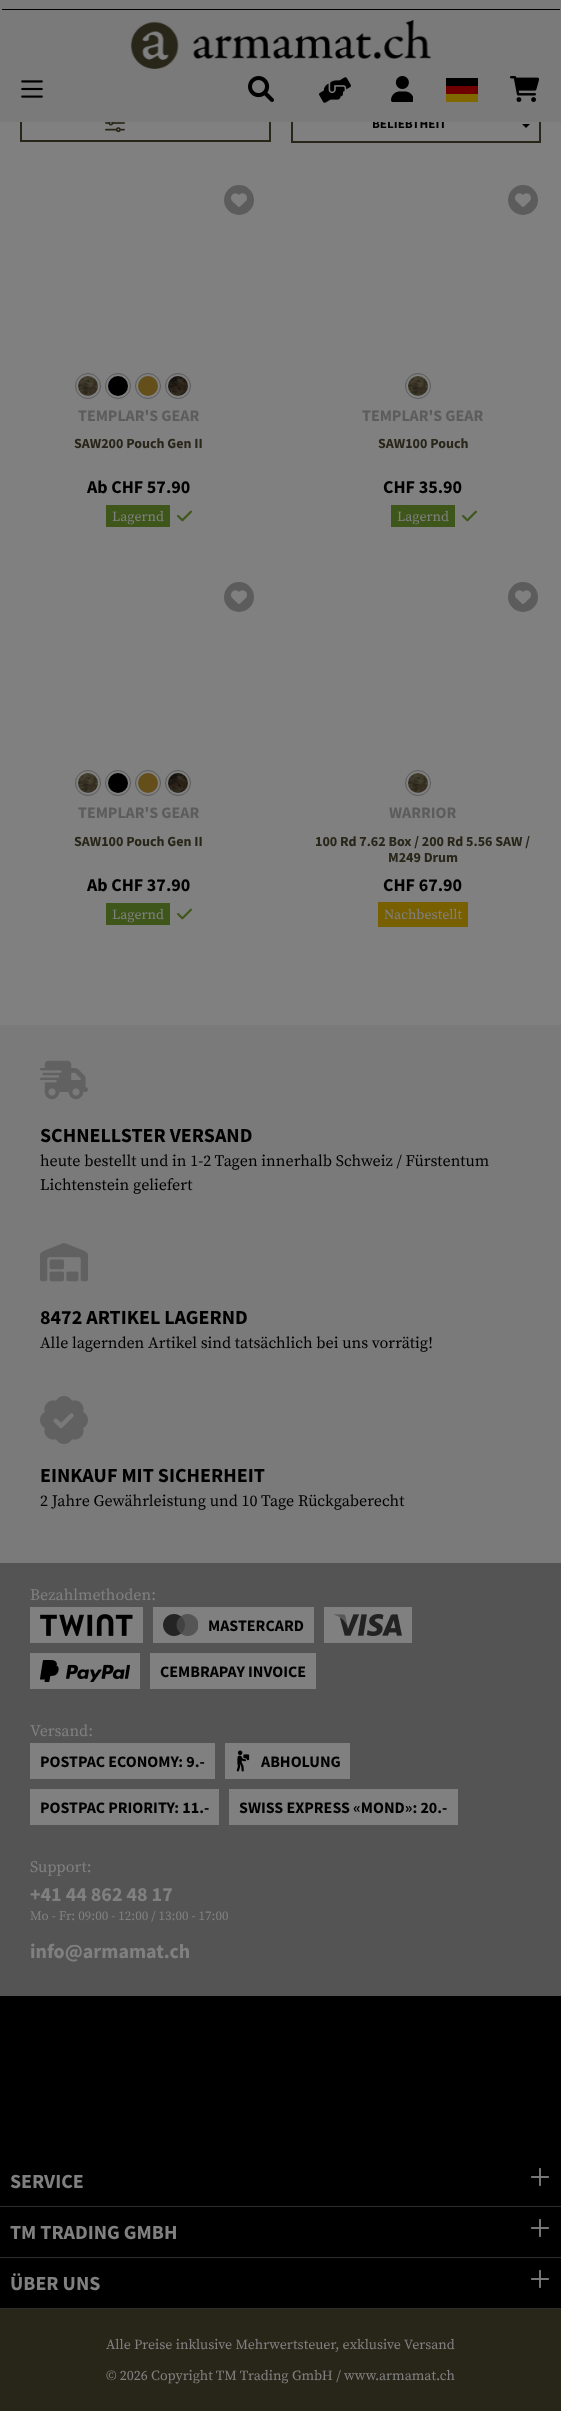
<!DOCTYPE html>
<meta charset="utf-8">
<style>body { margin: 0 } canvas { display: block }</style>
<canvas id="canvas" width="561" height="2411"></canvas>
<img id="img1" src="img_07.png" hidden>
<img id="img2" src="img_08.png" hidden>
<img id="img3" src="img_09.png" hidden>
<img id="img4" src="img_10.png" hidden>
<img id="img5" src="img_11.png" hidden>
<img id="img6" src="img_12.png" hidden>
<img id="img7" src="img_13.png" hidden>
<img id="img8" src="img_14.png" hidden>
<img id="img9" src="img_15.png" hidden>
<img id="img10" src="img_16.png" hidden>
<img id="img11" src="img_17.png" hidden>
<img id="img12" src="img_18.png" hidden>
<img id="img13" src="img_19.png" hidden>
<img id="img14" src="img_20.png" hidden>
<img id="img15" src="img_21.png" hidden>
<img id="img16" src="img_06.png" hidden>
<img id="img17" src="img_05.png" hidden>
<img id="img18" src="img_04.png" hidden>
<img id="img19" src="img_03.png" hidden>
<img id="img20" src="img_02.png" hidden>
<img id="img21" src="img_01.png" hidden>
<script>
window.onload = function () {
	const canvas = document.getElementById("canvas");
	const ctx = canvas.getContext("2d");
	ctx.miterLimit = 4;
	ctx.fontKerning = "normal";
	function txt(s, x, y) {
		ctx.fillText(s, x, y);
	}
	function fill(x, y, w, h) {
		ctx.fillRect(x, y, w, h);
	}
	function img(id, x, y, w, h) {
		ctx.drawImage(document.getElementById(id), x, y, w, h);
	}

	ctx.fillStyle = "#808080";
	fill(0, 0, 561, 2411);
	ctx.strokeStyle = "#282519";
	ctx.lineWidth = 2;
	ctx.strokeRect(21, 104, 249, 37);
	img("img1", 105, 122, 20, 11);
	img("img2", 522, 124, 8, 4);
	ctx.strokeRect(292, 104, 248, 38);
	ctx.fillStyle = "#5C5C5C";
	ctx.beginPath();
	ctx.arc(239, 200, 15, 0, Math.PI * 2);
	ctx.fill();
	img("img3", 231, 193, 16, 14);
	ctx.beginPath();
	ctx.arc(88, 386, 12.5, 0, Math.PI * 2);
	ctx.strokeStyle = "#5C5C5C";
	ctx.lineWidth = 1;
	ctx.stroke();
	img("img4", 78, 376, 20, 20);
	ctx.fillStyle = "#000000";
	ctx.beginPath();
	ctx.arc(118, 386, 10, 0, Math.PI * 2);
	ctx.fill();
	ctx.beginPath();
	ctx.arc(118, 386, 12.5, 0, Math.PI * 2);
	ctx.stroke();
	ctx.fillStyle = "#644F1A";
	ctx.beginPath();
	ctx.arc(148, 386, 10, 0, Math.PI * 2);
	ctx.fill();
	ctx.beginPath();
	ctx.arc(148, 386, 12.5, 0, Math.PI * 2);
	ctx.stroke();
	ctx.beginPath();
	ctx.arc(178, 386, 12.5, 0, Math.PI * 2);
	ctx.stroke();
	img("img5", 168, 376, 20, 20);
	ctx.fillStyle = "#3E561A";
	fill(106, 505, 64, 22);
	img("img6", 177, 510, 15, 12);
	ctx.fillStyle = "#5C5C5C";
	ctx.beginPath();
	ctx.arc(523, 200, 15, 0, Math.PI * 2);
	ctx.fill();
	img("img3", 515, 193, 16, 14);
	ctx.beginPath();
	ctx.arc(418, 386, 12.5, 0, Math.PI * 2);
	ctx.stroke();
	img("img4", 408, 376, 20, 20);
	ctx.fillStyle = "#3E561A";
	fill(391, 505, 64, 22);
	img("img6", 462, 510, 15, 12);
	ctx.fillStyle = "#5C5C5C";
	ctx.beginPath();
	ctx.arc(239, 597, 15, 0, Math.PI * 2);
	ctx.fill();
	img("img3", 231, 590, 16, 14);
	ctx.beginPath();
	ctx.arc(88, 783, 12.5, 0, Math.PI * 2);
	ctx.stroke();
	img("img4", 78, 773, 20, 20);
	ctx.fillStyle = "#000000";
	ctx.beginPath();
	ctx.arc(118, 783, 10, 0, Math.PI * 2);
	ctx.fill();
	ctx.beginPath();
	ctx.arc(118, 783, 12.5, 0, Math.PI * 2);
	ctx.stroke();
	ctx.fillStyle = "#644F1A";
	ctx.beginPath();
	ctx.arc(148, 783, 10, 0, Math.PI * 2);
	ctx.fill();
	ctx.beginPath();
	ctx.arc(148, 783, 12.5, 0, Math.PI * 2);
	ctx.stroke();
	ctx.beginPath();
	ctx.arc(178, 783, 12.5, 0, Math.PI * 2);
	ctx.stroke();
	img("img5", 168, 773, 20, 20);
	ctx.fillStyle = "#3E561A";
	fill(106, 903, 64, 22);
	img("img6", 177, 908, 15, 12);
	ctx.fillStyle = "#5C5C5C";
	ctx.beginPath();
	ctx.arc(523, 597, 15, 0, Math.PI * 2);
	ctx.fill();
	img("img3", 515, 590, 16, 14);
	ctx.beginPath();
	ctx.arc(418, 783, 12.5, 0, Math.PI * 2);
	ctx.stroke();
	img("img4", 408, 773, 20, 20);
	ctx.fillStyle = "#786000";
	fill(378, 902, 90, 25);
	ctx.fillStyle = "#7A7A7A";
	fill(0, 1025, 561, 538);
	img("img7", 40, 1060, 48, 40);
	img("img8", 40, 1243, 48, 39);
	img("img9", 40, 1396, 48, 48);
	ctx.fillStyle = "#545454";
	fill(0, 1563, 561, 433);
	ctx.fillStyle = "#808080";
	fill(30, 1607, 113, 36);
	img("img10", 40, 1614, 93, 22);
	fill(153, 1607, 161, 36);
	img("img11", 163, 1614, 35, 22);
	fill(324, 1607, 88, 36);
	img("img12", 334, 1614, 68, 22);
	fill(30, 1653, 110, 36);
	img("img13", 40, 1660, 90, 22);
	fill(150, 1653, 166, 36);
	fill(30, 1743, 185, 36);
	fill(225, 1743, 125, 36);
	img("img14", 236, 1750, 14, 22);
	fill(30, 1789, 189, 36);
	fill(229, 1789, 229, 36);
	ctx.fillStyle = "#000000";
	fill(0, 1996, 561, 312);
	ctx.fillStyle = "#2D2D2D";
	fill(0, 2206, 561, 1);
	img("img15", 530, 2167, 20, 20);
	fill(0, 2257, 561, 1);
	img("img15", 530, 2218, 20, 20);
	fill(0, 2308, 561, 1);
	img("img15", 530, 2269, 20, 20);
	ctx.fillStyle = "#282519";
	fill(0, 2309, 561, 102);
	ctx.font = "bold 13px Source Sans Pro";
	ctx.fillStyle = "#000000";
	txt("BELIEBTHEIT", 372, 128);
	ctx.fillStyle = "#7A7A7A";
	fill(0, 0, 561, 122);
	img("img16", 510, 76, 29, 26);
	ctx.fillStyle = "#806700";
	fill(446, 94, 32, 8);
	ctx.fillStyle = "#6F0000";
	fill(446, 86, 32, 8);
	ctx.fillStyle = "#000000";
	fill(446, 78, 32, 8);
	img("img17", 391, 76, 22, 26);
	img("img18", 319, 77, 32, 26);
	img("img19", 248, 76, 26, 26);
	img("img20", 21, 80, 22, 18);
	img("img21", 130, 20, 301, 49);
	fill(2, 9, 558, 1);
	ctx.font = "bold 16px Source Sans Pro";
	ctx.fillStyle = "#5C5C5C";
	txt("TEMPLAR'S GEAR", 78, 421);
	ctx.font = "bold 14px Source Sans Pro";
	ctx.fillStyle = "#282519";
	txt("SAW200 Pouch Gen II", 74, 448);
	ctx.font = "bold 18px Source Sans Pro";
	ctx.fillStyle = "#000000";
	txt("Ab CHF 57.90", 87, 493);
	ctx.font = "14px Source Serif Pro";
	ctx.fillStyle = "#808080";
	txt("Lagernd", 112, 521);
	ctx.font = "bold 16px Source Sans Pro";
	ctx.fillStyle = "#5C5C5C";
	txt("TEMPLAR'S GEAR", 362, 421);
	ctx.font = "bold 14px Source Sans Pro";
	ctx.fillStyle = "#282519";
	txt("SAW100 Pouch", 378, 448);
	ctx.font = "bold 18px Source Sans Pro";
	ctx.fillStyle = "#000000";
	txt("CHF 35.90", 383, 493);
	ctx.font = "14px Source Serif Pro";
	ctx.fillStyle = "#808080";
	txt("Lagernd", 397, 521);
	ctx.font = "bold 16px Source Sans Pro";
	ctx.fillStyle = "#5C5C5C";
	txt("TEMPLAR'S GEAR", 78, 818);
	ctx.font = "bold 14px Source Sans Pro";
	ctx.fillStyle = "#282519";
	txt("SAW100 Pouch Gen II", 74, 846);
	ctx.font = "bold 18px Source Sans Pro";
	ctx.fillStyle = "#000000";
	txt("Ab CHF 37.90", 87, 891);
	ctx.font = "14px Source Serif Pro";
	ctx.fillStyle = "#808080";
	txt("Lagernd", 112, 919);
	ctx.font = "bold 16px Source Sans Pro";
	ctx.fillStyle = "#5C5C5C";
	txt("WARRIOR", 389, 818);
	ctx.font = "bold 14px Source Sans Pro";
	ctx.fillStyle = "#282519";
	txt("100 Rd 7.62 Box / 200 Rd 5.56 SAW /", 315, 846);
	txt("M249 Drum", 388, 862);
	ctx.font = "bold 18px Source Sans Pro";
	ctx.fillStyle = "#000000";
	txt("CHF 67.90", 383, 891);
	ctx.font = "14px Source Serif Pro";
	ctx.fillStyle = "#808080";
	txt("Nachbestellt", 384, 919);
	ctx.font = "bold 20px Source Sans Pro";
	ctx.fillStyle = "#000000";
	txt("SCHNELLSTER VERSAND", 40, 1142);
	ctx.font = "16px Source Serif Pro";
	txt("heute bestellt und in 1-2 Tagen innerhalb Schweiz / Fürstentum", 40, 1166);
	txt("Lichtenstein geliefert", 40, 1190);
	ctx.font = "bold 20px Source Sans Pro";
	txt("8472 ARTIKEL LAGERND", 40, 1324);
	ctx.font = "16px Source Serif Pro";
	txt("Alle lagernden Artikel sind tatsächlich bei uns vorrätig!", 40, 1348);
	ctx.font = "bold 20px Source Sans Pro";
	txt("EINKAUF MIT SICHERHEIT", 40, 1482);
	ctx.font = "16px Source Serif Pro";
	txt("2 Jahre Gewährleistung und 10 Tage Rückgaberecht", 40, 1506);
	ctx.fillStyle = "#808080";
	txt("Bezahlmethoden:", 30, 1600);
	ctx.font = "bold 16px Source Sans Pro";
	ctx.fillStyle = "#000000";
	txt("MASTERCARD", 208, 1631);
	txt("CEMBRAPAY INVOICE", 160, 1677);
	ctx.font = "16px Source Serif Pro";
	ctx.fillStyle = "#808080";
	txt("Versand:", 30, 1736);
	ctx.font = "bold 16px Source Sans Pro";
	ctx.fillStyle = "#000000";
	txt("POSTPAC ECONOMY: 9.-", 40, 1767);
	txt("ABHOLUNG", 261, 1767);
	txt("POSTPAC PRIORITY: 11.-", 40, 1813);
	txt("SWISS EXPRESS «MOND»: 20.-", 239, 1813);
	ctx.font = "16px Source Serif Pro";
	ctx.fillStyle = "#808080";
	txt("Support:", 30, 1872);
	ctx.font = "bold 20px Source Sans Pro";
	txt("+41 44 862 48 17", 30, 1901);
	ctx.font = "13px Source Serif Pro";
	txt("Mo - Fr: 09:00 - 12:00 / 13:00 - 17:00", 30, 1920);
	ctx.font = "bold 20px Source Sans Pro";
	txt("info@armamat.ch", 30, 1958);
	txt("SERVICE", 10, 2188);
	txt("TM TRADING GMBH", 10, 2239);
	txt("ÜBER UNS", 10, 2290);
	ctx.font = "14px Source Serif Pro";
	txt("Alle Preise inklusive Mehrwertsteuer, exklusive Versand", 106, 2349);
	txt("© 2026 Copyright TM Trading GmbH / www.armamat.ch", 106, 2380);
};
</script>
